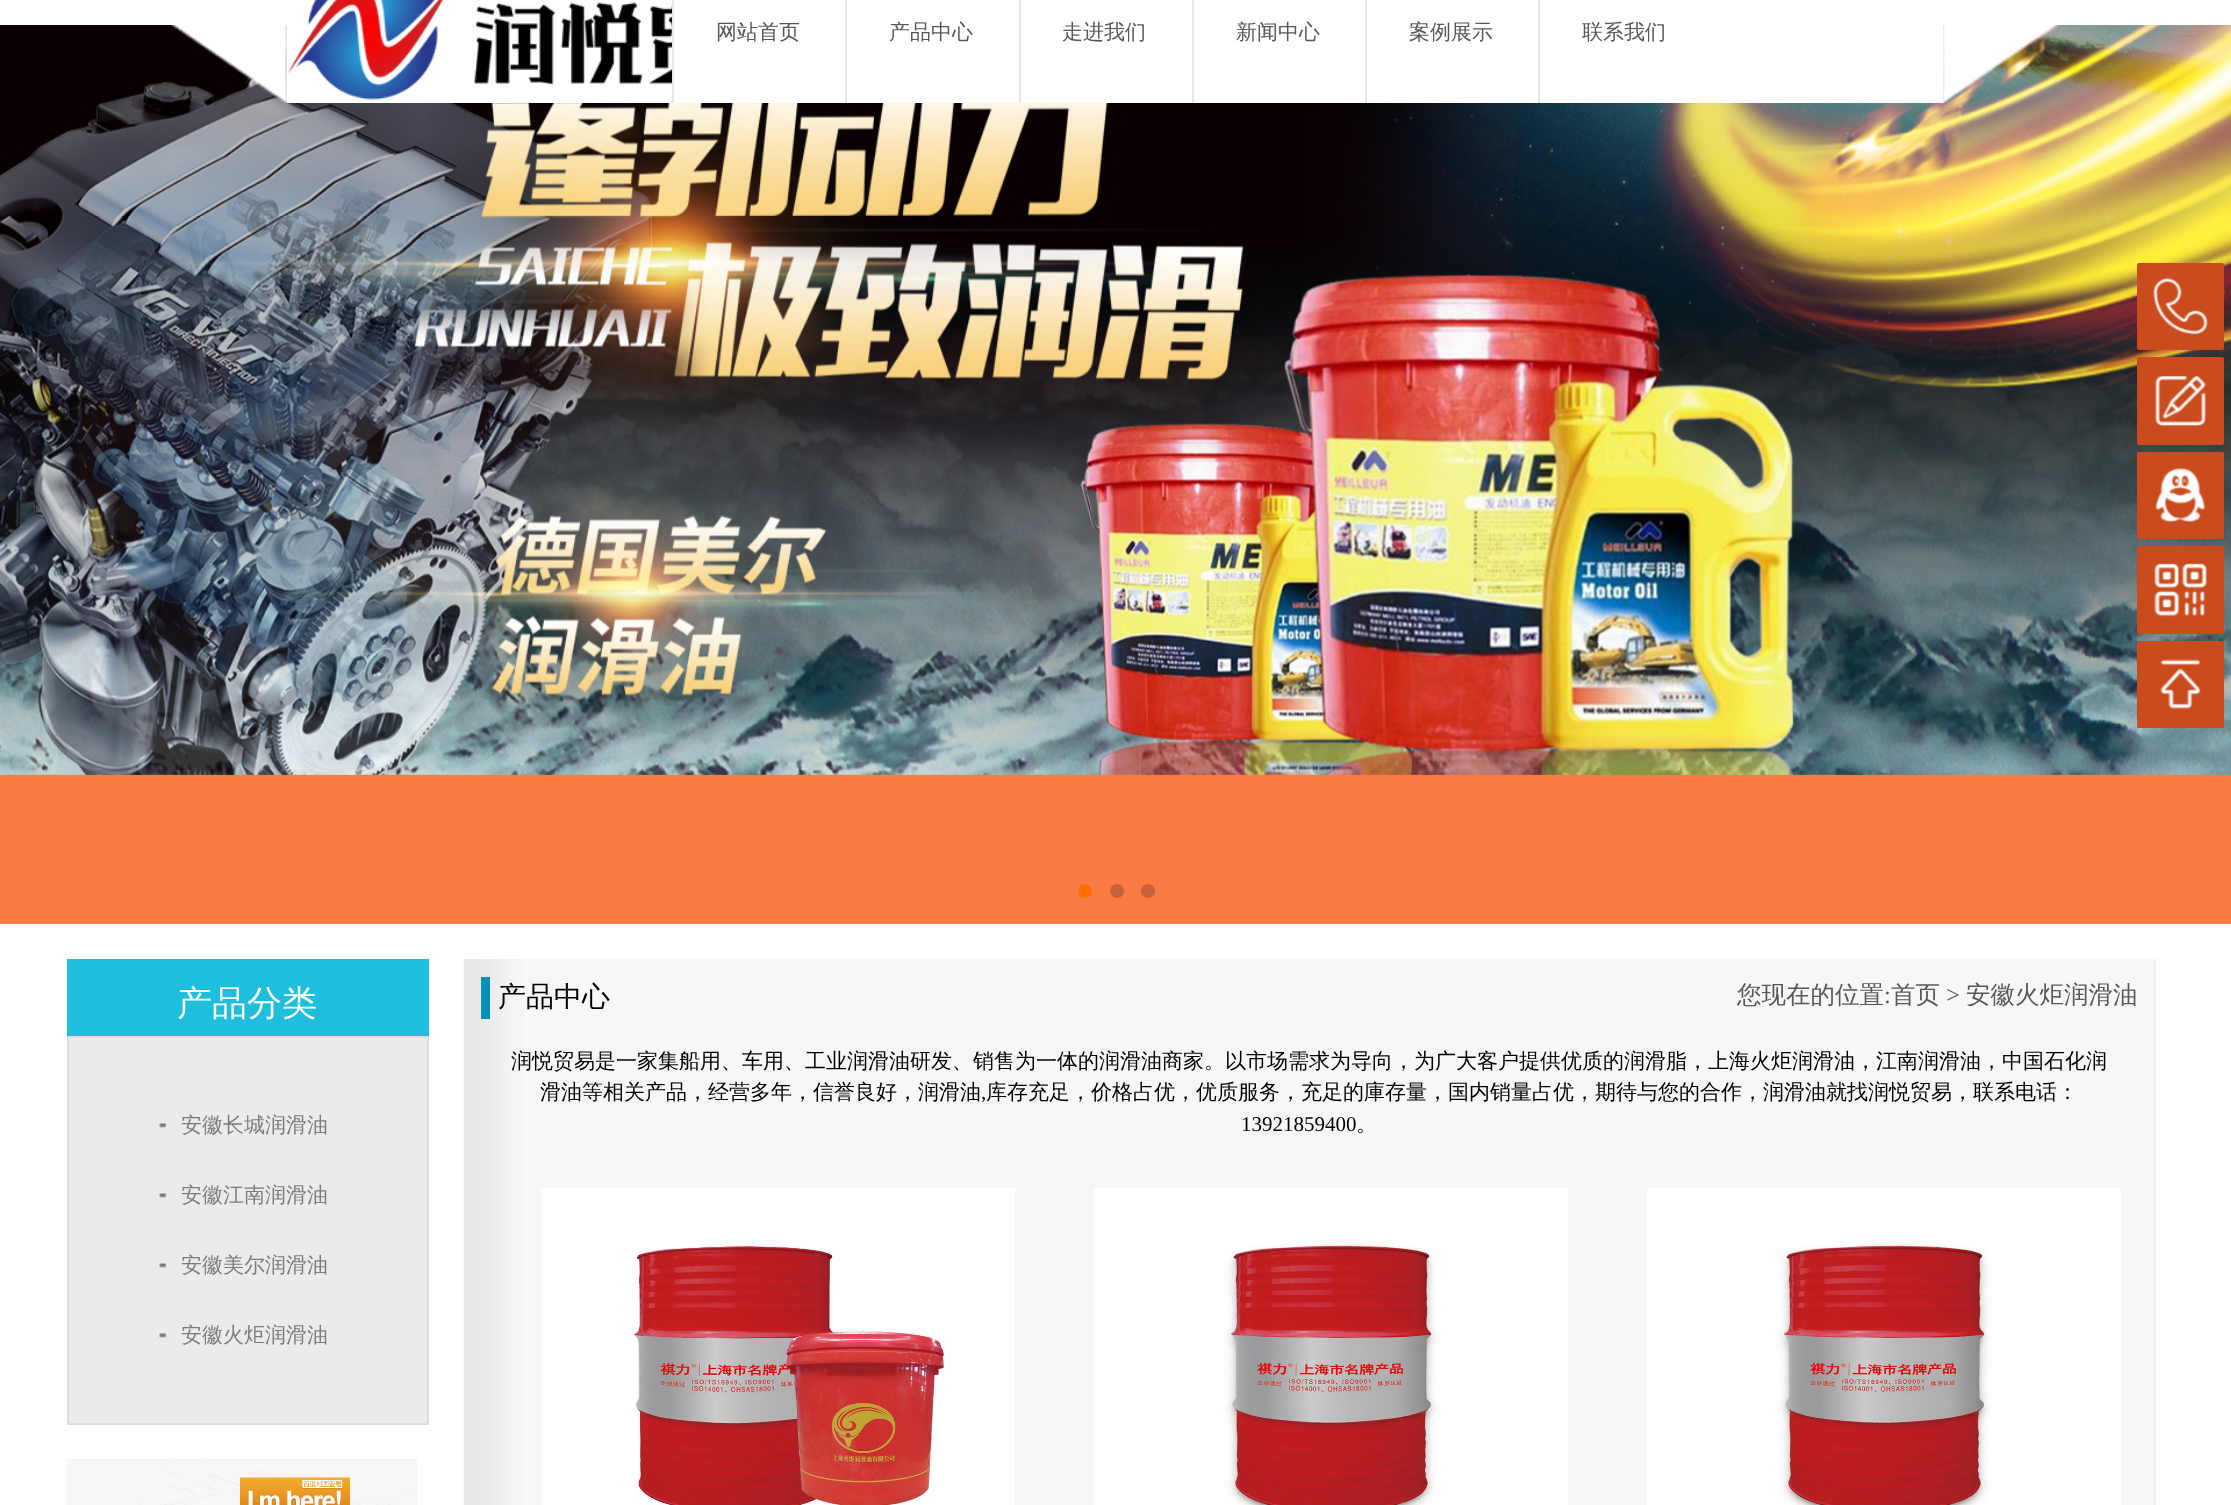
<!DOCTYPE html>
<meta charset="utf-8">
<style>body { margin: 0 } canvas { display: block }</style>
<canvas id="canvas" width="2231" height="1505"></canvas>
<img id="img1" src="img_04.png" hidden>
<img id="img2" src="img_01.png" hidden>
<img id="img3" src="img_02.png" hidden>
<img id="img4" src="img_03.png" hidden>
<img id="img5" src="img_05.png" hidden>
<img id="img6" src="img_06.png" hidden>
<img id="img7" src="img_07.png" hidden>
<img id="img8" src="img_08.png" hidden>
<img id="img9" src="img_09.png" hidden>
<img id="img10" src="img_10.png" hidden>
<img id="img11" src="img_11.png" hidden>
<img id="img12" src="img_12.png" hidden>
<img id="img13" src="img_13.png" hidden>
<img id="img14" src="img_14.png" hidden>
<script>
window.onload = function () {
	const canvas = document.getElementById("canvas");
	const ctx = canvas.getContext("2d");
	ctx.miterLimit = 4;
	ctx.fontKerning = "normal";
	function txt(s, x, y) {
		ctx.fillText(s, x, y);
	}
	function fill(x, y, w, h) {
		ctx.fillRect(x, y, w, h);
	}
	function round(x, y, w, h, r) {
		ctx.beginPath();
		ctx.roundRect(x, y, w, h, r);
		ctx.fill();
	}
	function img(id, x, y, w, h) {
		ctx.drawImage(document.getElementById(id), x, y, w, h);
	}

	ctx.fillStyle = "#FFFFFF";
	fill(0, 0, 2231, 1505);
	ctx.fillStyle = "#F97A43";
	fill(0, 774, 2231, 150);
	img("img1", 0, 25, 2231, 750);
	img("img2", 171, 25, 116, 79);
	ctx.fillStyle = "#FFFFFF";
	fill(287, 25, 1656, 78);
	img("img3", 288, 0, 384, 100);
	ctx.fillStyle = "#E7E7E7";
	fill(672, 0, 2, 103);
	fill(845, 0, 2, 103);
	fill(1019, 0, 2, 103);
	fill(1192, 0, 2, 103);
	fill(1365, 0, 2, 103);
	fill(1538, 0, 2, 103);
	img("img4", 1942, 25, 116, 79);
	ctx.fillStyle = "#FF6D00";
	ctx.beginPath();
	ctx.arc(1085, 891, 7, 0, Math.PI * 2);
	ctx.fill();
	ctx.fillStyle = "#C76236";
	ctx.beginPath();
	ctx.arc(1117, 891, 7, 0, Math.PI * 2);
	ctx.fill();
	ctx.beginPath();
	ctx.arc(1148, 891, 7, 0, Math.PI * 2);
	ctx.fill();
	ctx.fillStyle = "#1EBFDC";
	fill(67, 959, 362, 77);
	ctx.fillStyle = "#EBEBEB";
	ctx.beginPath();
	ctx.rect(68, 1037, 360, 387);
	ctx.fill();
	ctx.strokeStyle = "#DDDDDD";
	ctx.lineWidth = 2;
	ctx.stroke();
	img("img5", 156, 1123, 11, 9);
	img("img5", 156, 1193, 11, 9);
	img("img5", 156, 1263, 11, 9);
	img("img5", 156, 1333, 11, 9);
	img("img6", 66, 1459, 351, 46);
	img("img7", 463, 959, 1693, 546);
	ctx.fillStyle = "#0292B7";
	fill(481, 977, 9, 42);
	img("img8", 541, 1188, 474, 317);
	img("img9", 1094, 1188, 474, 317);
	img("img9", 1647, 1188, 474, 317);
	ctx.fillStyle = "#CA4B1D";
	round(2137, 263, 87, 87, 2);
	img("img10", 2153, 278, 55, 57);
	round(2137, 357, 87, 88, 2);
	img("img11", 2155, 375, 51, 52);
	round(2137, 452, 87, 87, 2);
	img("img12", 2155, 468, 51, 55);
	round(2137, 546, 87, 88, 2);
	img("img13", 2154, 563, 53, 54);
	round(2137, 641, 87, 87, 2);
	img("img14", 2160, 659, 41, 51);
	ctx.font = "500 21px WenQuanYi Zen Hei";
	ctx.fillStyle = "#585858";
	txt("网站首页", 716, 39);
	txt("产品中心", 889, 39);
	txt("走进我们", 1062, 39);
	txt("新闻中心", 1236, 39);
	txt("案例展示", 1409, 39);
	txt("联系我们", 1582, 39);
	ctx.font = "500 35px WenQuanYi Zen Hei";
	ctx.fillStyle = "#FFFFFF";
	txt("产品分类", 177, 1015);
	ctx.font = "500 21px WenQuanYi Zen Hei";
	ctx.fillStyle = "#7C7C7C";
	txt("安徽长城润滑油", 181, 1132);
	txt("安徽江南润滑油", 181, 1202);
	txt("安徽美尔润滑油", 181, 1272);
	txt("安徽火炬润滑油", 181, 1342);
	ctx.font = "500 28px WenQuanYi Zen Hei";
	ctx.fillStyle = "#000000";
	txt("产品中心", 498, 1006);
	ctx.font = "500 24.5px WenQuanYi Zen Hei";
	ctx.fillStyle = "#585858";
	txt("您现在的位置", 1737, 1003);
	ctx.font = "24.5px Liberation Serif";
	txt(":", 1884, 1003);
	ctx.font = "500 24.5px WenQuanYi Zen Hei";
	txt("首页", 1891, 1003);
	ctx.font = "24.5px Liberation Serif";
	txt(">", 1946, 1003);
	ctx.font = "500 24.5px WenQuanYi Zen Hei";
	txt("安徽火炬润滑油", 1966, 1003);
	ctx.font = "500 21px WenQuanYi Zen Hei";
	ctx.fillStyle = "#000000";
	txt("润悦贸易是一家集船用、车用、工业润滑油研发、销售为一体的润滑油商家。以市场需求为导向，为广大客户提供优质的润滑脂，上海火炬润滑油，江南润滑油，中国石化润", 511, 1068);
	txt("滑油等相关产品，经营多年，信誉良好，润滑油", 540, 1099);
	ctx.font = "21px Liberation Serif";
	txt(",", 981, 1099);
	ctx.font = "500 21px WenQuanYi Zen Hei";
	txt("库存充足，价格占优，优质服务，充足的庫存量，国内销量占优，期待与您的合作，润滑油就找润悦贸易，联系电话：", 986, 1099);
	ctx.font = "21px Liberation Serif";
	txt("13921859400", 1241, 1131);
	ctx.font = "500 21px WenQuanYi Zen Hei";
	txt("。", 1356, 1131);
};
</script>
